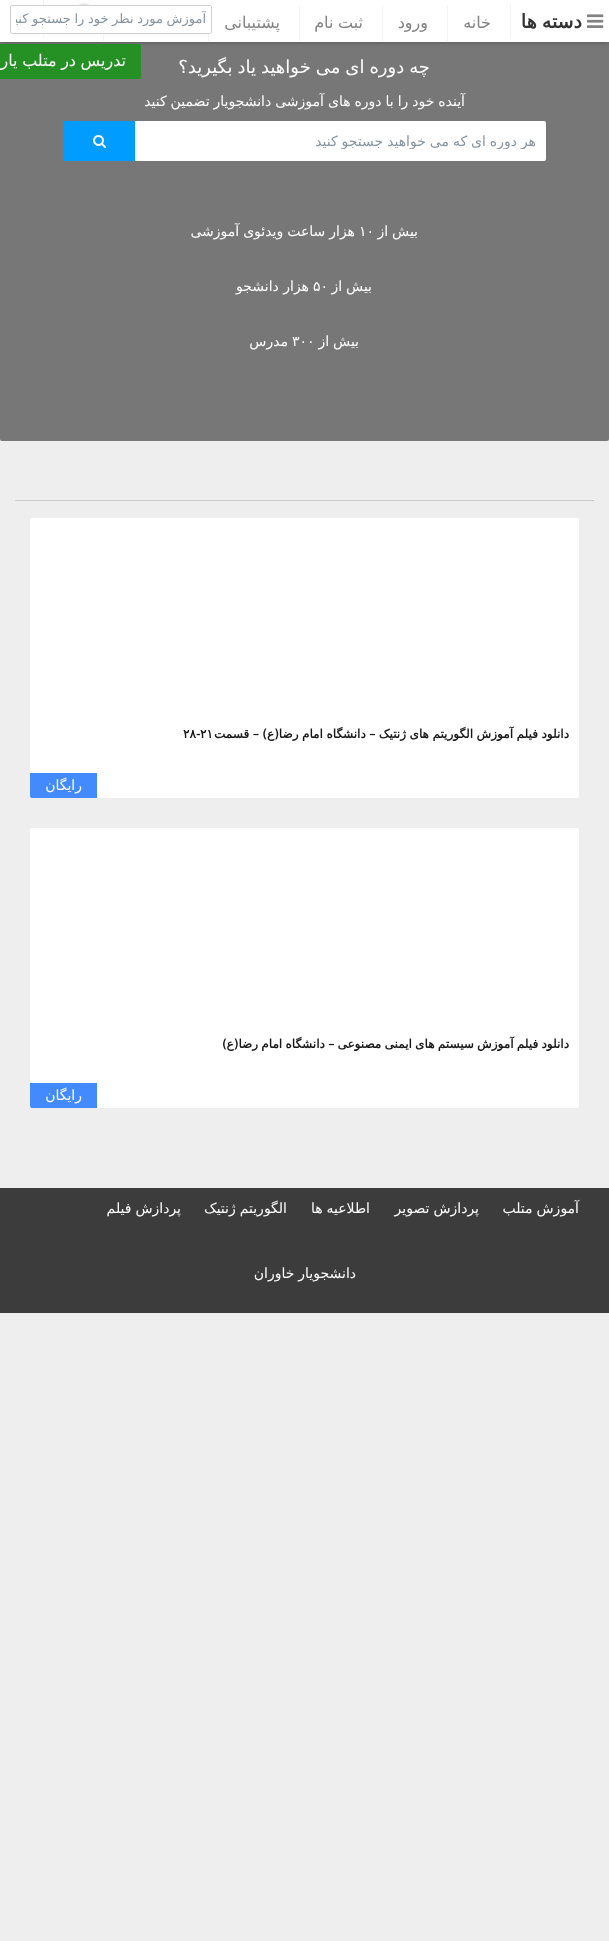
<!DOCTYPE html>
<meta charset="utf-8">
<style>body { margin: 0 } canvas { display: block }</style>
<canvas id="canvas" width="609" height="1941"></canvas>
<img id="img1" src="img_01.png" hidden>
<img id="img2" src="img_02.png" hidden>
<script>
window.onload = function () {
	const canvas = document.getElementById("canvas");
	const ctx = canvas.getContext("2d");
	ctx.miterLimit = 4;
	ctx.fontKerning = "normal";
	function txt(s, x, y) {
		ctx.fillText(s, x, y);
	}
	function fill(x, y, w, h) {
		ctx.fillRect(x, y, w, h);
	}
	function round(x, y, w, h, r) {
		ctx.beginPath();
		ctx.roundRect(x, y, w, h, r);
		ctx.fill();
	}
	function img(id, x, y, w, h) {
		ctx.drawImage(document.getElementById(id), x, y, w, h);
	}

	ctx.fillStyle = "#EEEEEE";
	fill(0, 0, 609, 1941);
	ctx.fillStyle = "#777777";
	round(0, 0, 609, 441, 2);
	ctx.fillStyle = "rgba(0, 0, 0, 0.3)";
	ctx.filter = "blur(2.5px)";
	ctx.beginPath();
	ctx.rect(0, 0, 609, 42);
	ctx.fill();
	ctx.filter = "none";
	ctx.fillStyle = "#FFFFFF";
	fill(0, 0, 609, 42);
	ctx.fillStyle = "#F3F3F3";
	fill(43, 0, 1, 37);
	ctx.fillStyle = "rgba(0, 0, 0, 0.4)";
	ctx.filter = "blur(1.5px)";
	ctx.beginPath();
	ctx.roundRect(74, 5, 20, 20, 10);
	ctx.fill();
	ctx.filter = "none";
	ctx.beginPath();
	ctx.roundRect(10.5, 5.5, 201, 28, 1.5);
	ctx.strokeStyle = "#D2D2D2";
	ctx.stroke();
	ctx.fillStyle = "#FFFFFF";
	round(11, 6, 200, 27, 1);
	ctx.fillStyle = "#F3F3F3";
	fill(510, 4, 1, 35);
	img("img1", 587, 14, 17, 14);
	fill(447, 6, 1, 35);
	fill(382, 6, 1, 35);
	fill(299, 6, 1, 35);
	fill(208, 34, 1, 7);
	fill(103, 34, 1, 7);
	ctx.fillStyle = "#259125";
	round(-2, 44, 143, 35, 2);
	ctx.fillStyle = "#FFFFFF";
	ctx.beginPath();
	ctx.roundRect(83, 121, 463, 40, [0, 2, 2, 0]);
	ctx.fill();
	ctx.fillStyle = "#009CFF";
	ctx.beginPath();
	ctx.roundRect(63, 121, 72, 40, [2, 0, 0, 2]);
	ctx.fill();
	img("img2", 93, 135, 13, 13);
	ctx.fillStyle = "#CCCCCC";
	fill(15, 500, 579, 1);
	ctx.fillStyle = "#FFFFFF";
	round(30, 518, 549, 280, 2);
	ctx.fillStyle = "#448AFF";
	ctx.beginPath();
	ctx.roundRect(30, 773, 67, 25, [0, 0, 0, 2]);
	ctx.fill();
	ctx.fillStyle = "#FFFFFF";
	round(30, 828, 549, 280, 2);
	ctx.fillStyle = "#448AFF";
	ctx.beginPath();
	ctx.roundRect(30, 1083, 67, 25, [0, 0, 0, 2]);
	ctx.fill();
	ctx.fillStyle = "#3C3C3C";
	fill(0, 1188, 609, 125);
	ctx.save();
	ctx.beginPath();
	ctx.rect(16, 11, 190, 15);
	ctx.clip();
	ctx.wordSpacing = "-0.5px";
	ctx.direction = "rtl";
	ctx.font = "13px DejaVu Sans";
	ctx.fillStyle = "#8694A0";
	txt("آموزش مورد نظر خود را جستجو کنید", 206, 23);
	ctx.restore();
	ctx.wordSpacing = "-1px";
	ctx.direction = "rtl";
	ctx.font = "bold 19px DejaVu Sans";
	ctx.fillStyle = "#333333";
	txt("دسته ها", 582, 28);
	ctx.wordSpacing = "0px";
	ctx.font = "16px DejaVu Sans";
	ctx.fillStyle = "#828282";
	txt("خانه", 491, 28);
	txt("ورود", 428, 28);
	ctx.wordSpacing = "-0.5px";
	txt("ثبت نام", 363, 28);
	ctx.wordSpacing = "0px";
	txt("پشتیبانی", 280, 28);
	ctx.wordSpacing = "-0.5px";
	ctx.fillStyle = "#FFFFFF";
	txt("تدریس در متلب یار", 126, 66);
	ctx.wordSpacing = "-0.75px";
	ctx.font = "18px DejaVu Sans";
	txt("چه دوره ای می خواهید یاد بگیرید؟", 430, 73);
	ctx.wordSpacing = "-0.5px";
	ctx.font = "14px DejaVu Sans";
	txt("آینده خود را با دوره های آموزشی دانشجویار تضمین کنید", 465, 106);
	ctx.save();
	ctx.beginPath();
	ctx.rect(93, 133, 443, 16);
	ctx.clip();
	ctx.fillStyle = "#8694A0";
	txt("هر دوره ای که می خواهید جستجو کنید", 536, 146);
	ctx.restore();
	txt("بیش از", 418, 236);
	ctx.wordSpacing = "0px";
	ctx.direction = "ltr";
	txt("۱۰", 359, 236);
	ctx.wordSpacing = "-0.5px";
	ctx.direction = "rtl";
	txt("هزار ساعت ویدئوی آموزشی", 355, 236);
	txt("بیش از", 372, 291);
	ctx.wordSpacing = "0px";
	ctx.direction = "ltr";
	txt("۵۰", 313, 291);
	ctx.direction = "rtl";
	txt("هزار دانشجو", 309, 291);
	ctx.wordSpacing = "-0.5px";
	txt("بیش از", 359, 346);
	ctx.wordSpacing = "0px";
	ctx.direction = "ltr";
	txt("۳۰۰", 292, 346);
	ctx.direction = "rtl";
	txt("مدرس", 288, 346);
	ctx.wordSpacing = "-0.25px";
	ctx.font = "bold 12px DejaVu Sans";
	ctx.fillStyle = "#171717";
	txt("دانلود فیلم آموزش الگوریتم های ژنتیک – دانشگاه امام رضا(ع) – قسمت", 569, 738);
	ctx.wordSpacing = "0px";
	ctx.direction = "ltr";
	txt("۲۸-", 183, 738);
	txt("۲۱", 200, 738);
	ctx.direction = "rtl";
	ctx.font = "14px DejaVu Sans";
	ctx.fillStyle = "#FFFFFF";
	txt("رایگان", 82, 790);
	ctx.wordSpacing = "-0.5px";
	ctx.font = "bold 12px DejaVu Sans";
	ctx.fillStyle = "#171717";
	txt("دانلود فیلم آموزش سیستم های ایمنی مصنوعی – دانشگاه امام رضا(ع)", 569, 1048);
	ctx.wordSpacing = "0px";
	ctx.font = "14px DejaVu Sans";
	ctx.fillStyle = "#FFFFFF";
	txt("رایگان", 82, 1100);
	ctx.wordSpacing = "-0.5px";
	txt("آموزش متلب", 579, 1213);
	txt("پردازش تصویر", 479, 1213);
	txt("اطلاعیه ها", 370, 1213);
	txt("الگوریتم ژنتیک", 287, 1213);
	txt("پردازش فیلم", 181, 1213);
	txt("دانشجویار خاوران", 356, 1278);
};
</script>
